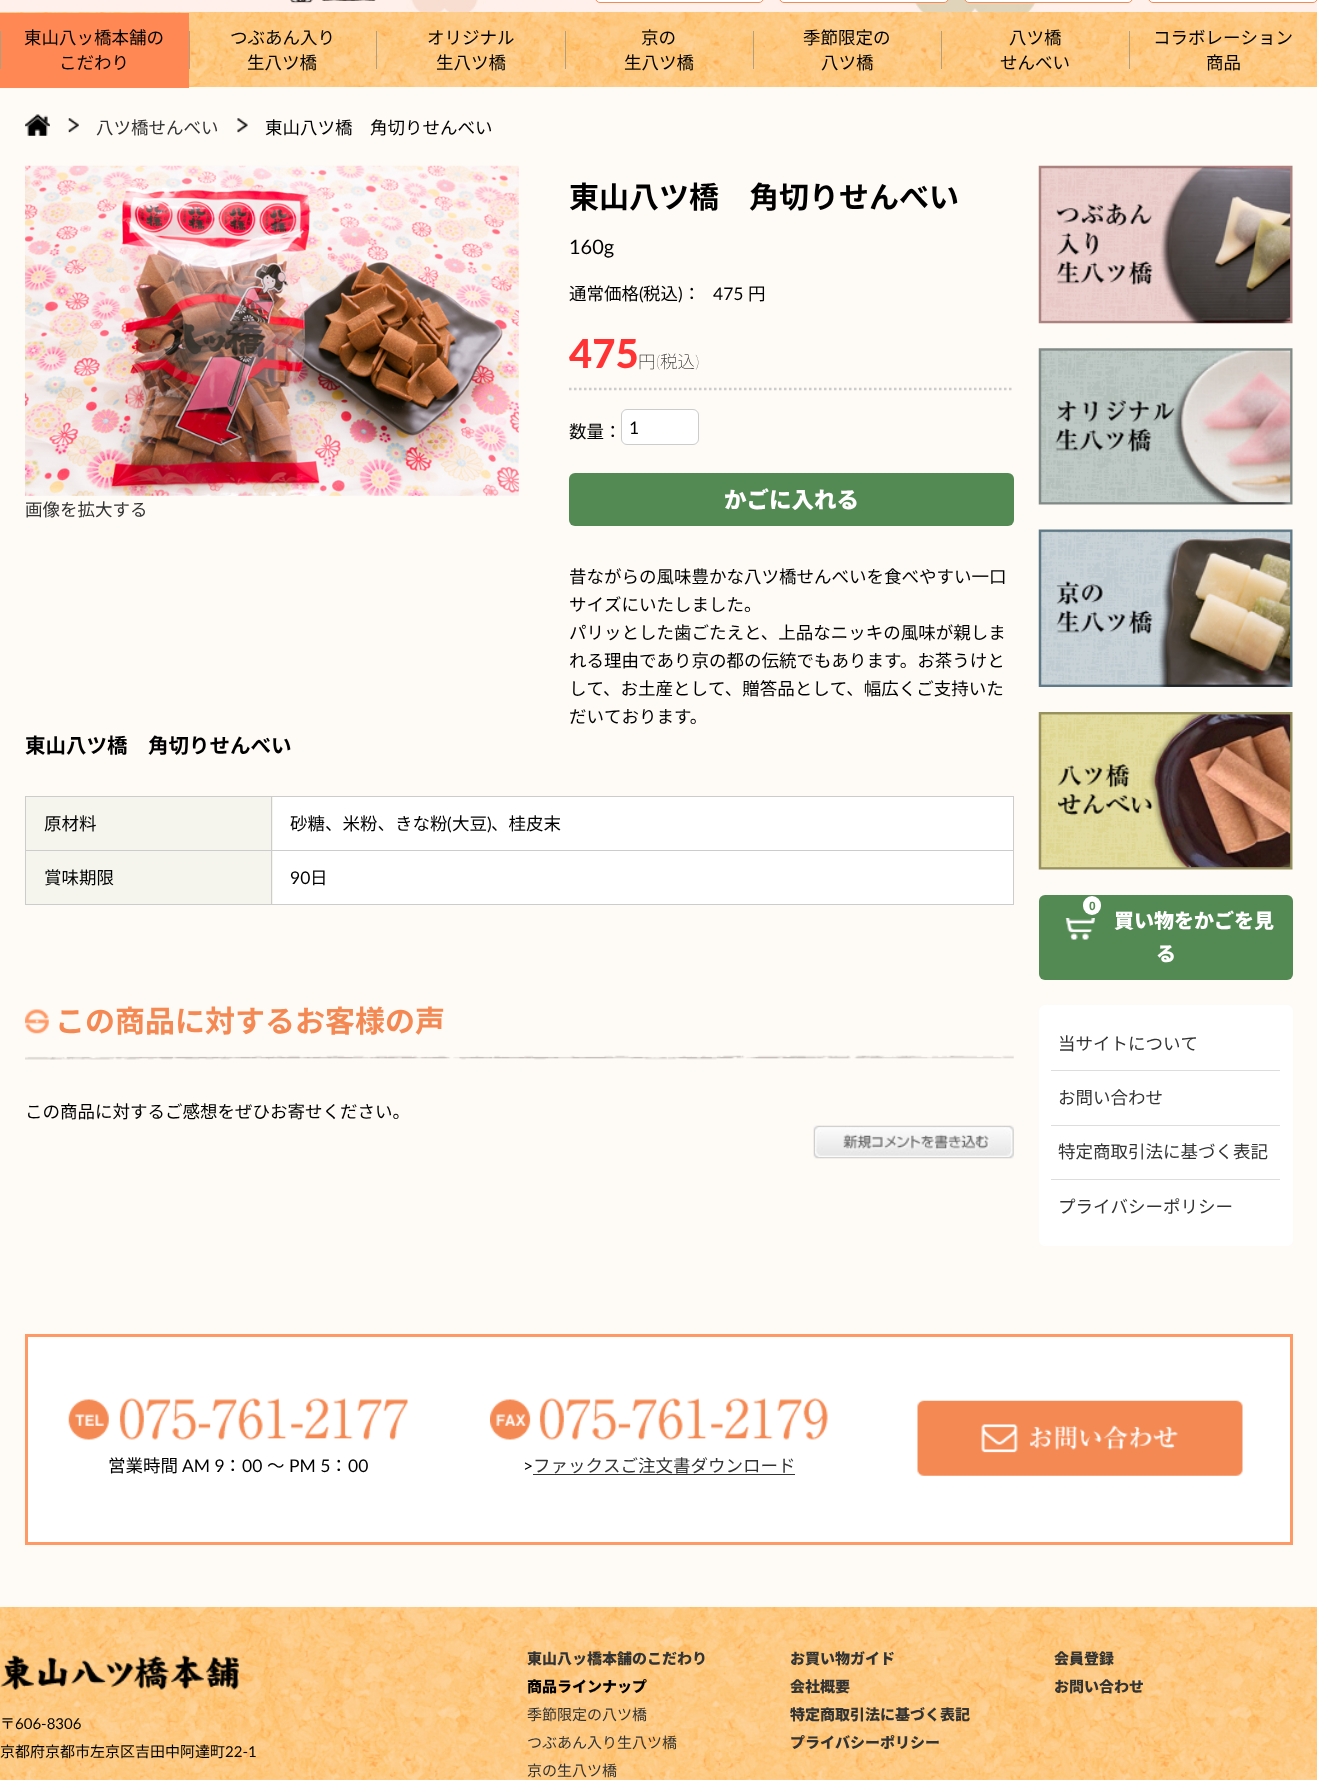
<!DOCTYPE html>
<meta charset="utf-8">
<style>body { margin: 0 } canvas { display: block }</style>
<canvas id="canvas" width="1317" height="1780"></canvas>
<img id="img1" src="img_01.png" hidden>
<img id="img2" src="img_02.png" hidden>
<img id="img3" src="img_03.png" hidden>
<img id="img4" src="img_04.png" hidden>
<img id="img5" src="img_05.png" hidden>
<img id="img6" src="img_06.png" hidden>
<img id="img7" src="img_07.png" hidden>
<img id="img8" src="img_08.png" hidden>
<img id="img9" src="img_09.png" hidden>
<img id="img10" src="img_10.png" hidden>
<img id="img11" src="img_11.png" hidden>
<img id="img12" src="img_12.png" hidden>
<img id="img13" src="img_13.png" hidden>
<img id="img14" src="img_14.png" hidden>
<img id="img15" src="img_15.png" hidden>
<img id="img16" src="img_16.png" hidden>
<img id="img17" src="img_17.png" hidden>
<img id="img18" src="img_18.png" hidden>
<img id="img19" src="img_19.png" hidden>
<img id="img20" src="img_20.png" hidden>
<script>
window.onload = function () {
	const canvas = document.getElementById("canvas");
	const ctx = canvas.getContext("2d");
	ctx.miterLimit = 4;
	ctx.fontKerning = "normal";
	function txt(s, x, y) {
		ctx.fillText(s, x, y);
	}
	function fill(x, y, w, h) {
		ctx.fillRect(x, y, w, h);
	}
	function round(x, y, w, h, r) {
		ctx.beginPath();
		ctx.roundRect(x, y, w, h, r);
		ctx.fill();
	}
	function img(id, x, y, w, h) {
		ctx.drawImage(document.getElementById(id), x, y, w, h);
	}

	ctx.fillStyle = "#FEFAF5";
	fill(0, 0, 1317, 1780);
	img("img1", 0, 0, 1317, 12);
	img("img2", 290, 0, 86, 4);
	ctx.fillStyle = "#FFFFFF";
	ctx.beginPath();
	ctx.roundRect(595.5, -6.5, 168, 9, 5.5);
	ctx.fill();
	ctx.strokeStyle = "#F48953";
	ctx.stroke();
	ctx.beginPath();
	ctx.roundRect(779.5, -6.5, 169, 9, 5.5);
	ctx.fill();
	ctx.stroke();
	ctx.beginPath();
	ctx.roundRect(964.5, -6.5, 168, 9, 5.5);
	ctx.fill();
	ctx.stroke();
	ctx.beginPath();
	ctx.roundRect(1148.5, -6.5, 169, 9, 5.5);
	ctx.fill();
	ctx.stroke();
	img("img3", 0, 12, 1317, 75);
	ctx.fillStyle = "#FF8855";
	fill(0, 13, 189, 75);
	ctx.fillStyle = "#B29E7E";
	fill(0, 31, 1, 38);
	fill(189, 31, 1, 38);
	fill(376, 31, 1, 38);
	fill(565, 31, 1, 38);
	fill(753, 31, 1, 38);
	fill(941, 31, 1, 38);
	fill(1129, 31, 1, 38);
	img("img4", 25, 114, 25, 22);
	img("img5", 68, 118, 11, 15);
	img("img6", 237, 118, 11, 15);
	img("img7", 25, 165, 494, 331);
	ctx.beginPath();
	ctx.moveTo(569, 389);
	ctx.lineTo(1014, 389);
	ctx.strokeStyle = "#CCCCCC";
	ctx.lineWidth = 2.5;
	ctx.setLineDash([2.5, 2.5]);
	ctx.stroke();
	ctx.fillStyle = "#FFFFFF";
	ctx.beginPath();
	ctx.roundRect(621.5, 409.5, 77, 35, 5.5);
	ctx.fill();
	ctx.lineWidth = 1;
	ctx.setLineDash([]);
	ctx.stroke();
	ctx.fillStyle = "#538953";
	round(569, 473, 445, 53, 6);
	ctx.fillStyle = "#CCCCCC";
	fill(25, 904, 989, 1);
	ctx.fillStyle = "#F5F5EE";
	fill(26, 797, 247, 53);
	ctx.fillStyle = "#CCCCCC";
	fill(25, 796, 989, 1);
	fill(271, 796, 1, 54);
	fill(25, 796, 1, 54);
	ctx.fillStyle = "#FFFFFF";
	fill(273, 797, 740, 53);
	ctx.fillStyle = "#CCCCCC";
	fill(1013, 796, 1, 54);
	ctx.fillStyle = "#F5F5EE";
	fill(26, 851, 247, 53);
	ctx.fillStyle = "#CCCCCC";
	fill(25, 850, 989, 1);
	fill(271, 850, 1, 54);
	fill(25, 850, 1, 54);
	ctx.fillStyle = "#FFFFFF";
	fill(273, 851, 740, 53);
	ctx.fillStyle = "#CCCCCC";
	fill(1013, 850, 1, 54);
	img("img8", 25, 1055, 989, 5);
	img("img9", 25, 1009, 24, 25);
	img("img10", 813, 1125, 201, 34);
	img("img11", 1038, 165, 255, 159);
	img("img12", 1038, 348, 255, 157);
	img("img13", 1038, 529, 255, 158);
	img("img14", 1038, 712, 255, 158);
	ctx.fillStyle = "#538953";
	round(1039, 895, 254, 85, 6);
	ctx.fillStyle = "#FFFFFF";
	round(1083, 896, 18, 19, 9);
	img("img15", 1065, 918, 30, 22);
	round(1039, 1005, 254, 241, 6);
	ctx.fillStyle = "#DDDDDD";
	fill(1051, 1070, 229, 1);
	fill(1051, 1125, 229, 1);
	fill(1051, 1179, 229, 1);
	ctx.fillStyle = "#FFFFFF";
	ctx.beginPath();
	ctx.rect(26.5, 1335.5, 1265, 208);
	ctx.fill();
	ctx.strokeStyle = "#FF9966";
	ctx.lineWidth = 3;
	ctx.stroke();
	img("img16", 68, 1398, 340, 42);
	img("img17", 490, 1398, 338, 42);
	ctx.fillStyle = "#333333";
	fill(533, 1474, 262, 1);
	img("img18", 917, 1400, 326, 76);
	img("img19", 0, 1607, 1317, 173);
	img("img20", 0, 1655, 239, 35);
	ctx.font = "17.5px Noto Sans JP";
	ctx.fillStyle = "#000000";
	txt("東山八ッ橋本舗の", 24, 44);
	txt("こだわり", 59, 69);
	txt("つぶあん入り", 230, 44);
	txt("生八ツ橋", 247, 69);
	txt("オリジナル", 427, 44);
	txt("生八ツ橋", 436, 69);
	txt("京の", 641, 44);
	txt("生八ツ橋", 624, 69);
	txt("季節限定の", 803, 44);
	txt("八ツ橋", 821, 69);
	txt("八ツ橋", 1009, 44);
	txt("せんべい", 1000, 69);
	txt("コラボレーション", 1153, 44);
	txt("商品", 1206, 69);
	ctx.fillStyle = "#333333";
	txt("八ツ橋せんべい", 96, 134);
	ctx.fillStyle = "#000000";
	txt("東山八ツ橋　角切りせんべい", 265, 134);
	ctx.fillStyle = "#333333";
	txt("画像を拡大する", 25, 516);
	ctx.font = "bold 30px Noto Sans JP";
	ctx.fillStyle = "#000000";
	txt("東山八ツ橋　角切りせんべい", 569, 208);
	ctx.font = "20px Lato";
	txt("160g", 569, 254);
	ctx.font = "17.5px Noto Sans JP";
	txt("通常価格", 569, 300);
	ctx.font = "17.5px Lato";
	txt("(", 639, 300);
	ctx.font = "17.5px Noto Sans JP";
	txt("税込", 643, 300);
	ctx.font = "17.5px Lato";
	txt(")", 678, 300);
	ctx.font = "17.5px Noto Sans JP";
	txt("：", 683, 300);
	ctx.font = "17.5px Lato";
	txt("475", 713, 300);
	ctx.font = "17.5px Noto Sans JP";
	txt("円", 748, 300);
	ctx.font = "900 40px Lato";
	ctx.fillStyle = "#FF3333";
	txt("475", 569, 368);
	ctx.font = "100 17.5px Noto Sans JP";
	ctx.fillStyle = "#000000";
	txt("円", 638, 368);
	ctx.font = "200 17.5px Lato";
	txt("(", 656, 368);
	ctx.font = "100 17.5px Noto Sans JP";
	txt("税込", 660, 368);
	ctx.font = "200 17.5px Lato";
	txt(")", 695, 368);
	ctx.font = "17.5px Noto Sans JP";
	txt("数量：", 569, 438);
	ctx.font = "17.5px Lato";
	txt("1", 629, 434);
	ctx.font = "900 22.5px Noto Sans JP";
	ctx.fillStyle = "#FFFFFF";
	txt("かごに入れる", 724, 508);
	ctx.font = "17.5px Noto Sans JP";
	ctx.fillStyle = "#000000";
	txt("昔ながらの風味豊かな八ツ橋せんべいを食べやすい一口", 569, 583);
	txt("サイズにいたしました。", 569, 611);
	txt("パリッとした歯ごたえと、上品なニッキの風味が親しま", 569, 639);
	txt("れる理由であり京の都の伝統でもあります。お茶うけと", 569, 667);
	txt("して、お土産として、贈答品として、幅広くご支持いた", 569, 695);
	txt("だいております。", 569, 723);
	ctx.font = "bold 20.5px Noto Sans JP";
	txt("東山八ツ橋　角切りせんべい", 25, 753);
	ctx.font = "17.5px Noto Sans JP";
	txt("原材料", 44, 830);
	txt("砂糖、米粉、きな粉", 290, 830);
	ctx.font = "17.5px Lato";
	txt("(", 447, 830);
	ctx.font = "17.5px Noto Sans JP";
	txt("大豆", 452, 830);
	ctx.font = "17.5px Lato";
	txt(")", 487, 830);
	ctx.font = "17.5px Noto Sans JP";
	txt("、桂皮末", 491, 830);
	txt("賞味期限", 44, 884);
	ctx.font = "17.5px Lato";
	txt("90", 290, 884);
	ctx.font = "17.5px Noto Sans JP";
	txt("日", 310, 884);
	ctx.font = "bold 30px Noto Sans JP";
	ctx.fillStyle = "#F48953";
	txt("この商品に対するお客様の声", 55, 1032);
	ctx.font = "17.5px Noto Sans JP";
	ctx.fillStyle = "#000000";
	txt("この商品に対するご感想をぜひお寄せください。", 25, 1118);
	ctx.font = "bold 12px Liberation Sans";
	ctx.fillStyle = "#538953";
	txt("0", 1089, 910);
	ctx.font = "900 20px Noto Sans JP";
	ctx.fillStyle = "#FFFFFF";
	txt("買い物をかごを見", 1114, 928);
	txt("る", 1156, 961);
	ctx.font = "17.5px Noto Sans JP";
	ctx.fillStyle = "#333333";
	txt("当サイトについて", 1058, 1050);
	txt("お問い合わせ", 1058, 1104);
	txt("特定商取引法に基づく表記", 1058, 1158);
	txt("プライバシーポリシー", 1058, 1213);
	ctx.fillStyle = "#000000";
	txt("営業時間", 108, 1472);
	ctx.font = "17.5px Lato";
	txt("AM 9", 182, 1472);
	ctx.font = "17.5px Noto Sans JP";
	txt("：", 224, 1472);
	ctx.font = "17.5px Lato";
	txt("00", 242, 1472);
	ctx.font = "17.5px Noto Sans JP";
	txt("～", 267, 1472);
	ctx.font = "17.5px Lato";
	txt("PM 5", 289, 1472);
	ctx.font = "17.5px Noto Sans JP";
	txt("：", 330, 1472);
	ctx.font = "17.5px Lato";
	txt("00", 348, 1472);
	txt(">", 523, 1472);
	ctx.font = "17.5px Noto Sans JP";
	ctx.fillStyle = "#333333";
	txt("ファックスご注文書ダウンロード", 533, 1472);
	ctx.font = "900 15px Noto Sans JP";
	txt("東山八ッ橋本舗のこだわり", 527, 1664);
	ctx.fillStyle = "#000000";
	txt("商品ラインナップ", 527, 1692);
	ctx.font = "15px Noto Sans JP";
	ctx.fillStyle = "#333333";
	txt("季節限定の八ツ橋", 527, 1720);
	txt("つぶあん入り生八ツ橋", 527, 1748);
	txt("京の生八ツ橋", 527, 1776);
	ctx.font = "900 15px Noto Sans JP";
	txt("お買い物ガイド", 790, 1664);
	txt("会社概要", 790, 1692);
	txt("特定商取引法に基づく表記", 790, 1720);
	txt("プライバシーポリシー", 790, 1748);
	txt("会員登録", 1054, 1664);
	txt("お問い合わせ", 1054, 1692);
	ctx.font = "15px Noto Sans JP";
	ctx.fillStyle = "#000000";
	txt("〒", 0, 1729);
	ctx.font = "15px Lato";
	txt("606-8306", 15, 1729);
	ctx.font = "15px Noto Sans JP";
	txt("京都府京都市左京区吉田中阿達町", 0, 1757);
	ctx.font = "15px Lato";
	txt("22-1", 225, 1757);
};
</script>
